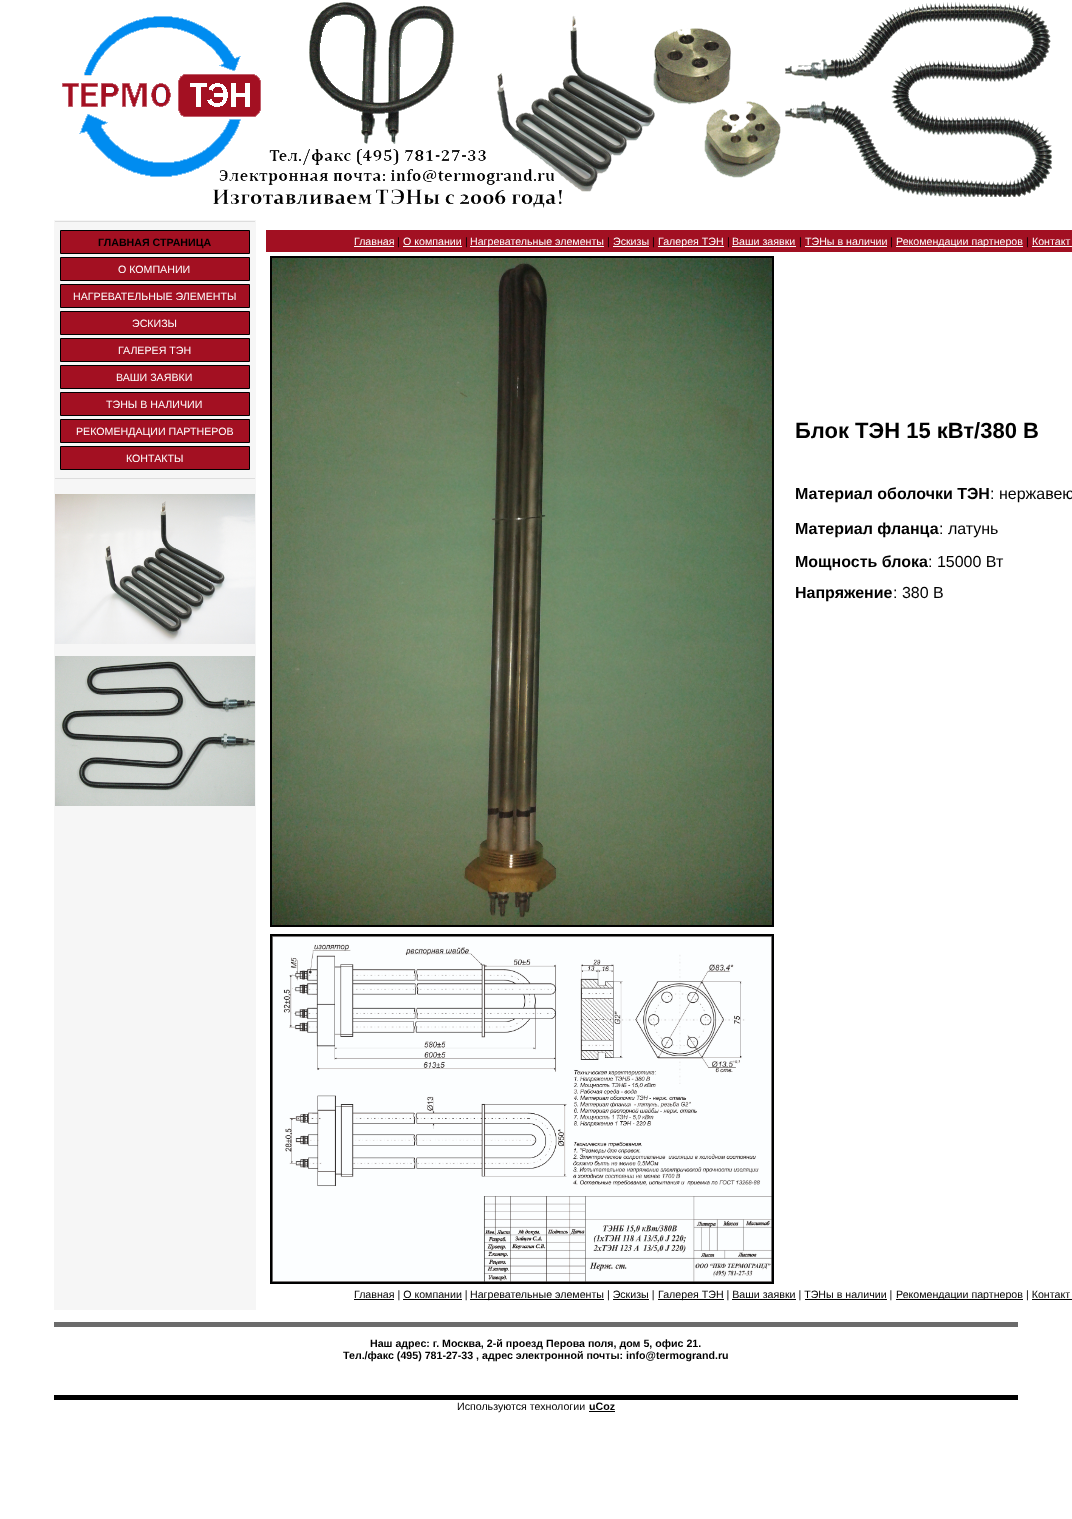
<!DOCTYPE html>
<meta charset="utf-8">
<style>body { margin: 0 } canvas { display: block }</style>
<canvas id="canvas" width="1072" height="1519"></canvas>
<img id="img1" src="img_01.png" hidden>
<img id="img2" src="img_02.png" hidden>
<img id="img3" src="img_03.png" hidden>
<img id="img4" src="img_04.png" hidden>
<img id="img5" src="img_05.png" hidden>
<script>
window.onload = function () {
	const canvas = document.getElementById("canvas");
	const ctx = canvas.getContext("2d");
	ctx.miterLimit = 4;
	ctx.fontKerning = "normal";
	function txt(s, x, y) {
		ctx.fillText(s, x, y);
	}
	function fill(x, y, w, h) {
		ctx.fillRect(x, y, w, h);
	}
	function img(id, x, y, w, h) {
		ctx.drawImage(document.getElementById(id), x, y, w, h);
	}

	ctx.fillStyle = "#FFFFFF";
	fill(0, 0, 1072, 1519);
	img("img1", 62, 2, 990, 206);
	ctx.fillStyle = "#F6F6F6";
	fill(54, 220, 202, 1090);
	ctx.fillStyle = "#DDDDDD";
	fill(55, 221, 200, 1);
	fill(55, 478, 200, 1);
	ctx.fillStyle = "#A31022";
	ctx.beginPath();
	ctx.rect(60.5, 230.5, 189, 23);
	ctx.fill();
	ctx.strokeStyle = "#000000";
	ctx.stroke();
	ctx.beginPath();
	ctx.rect(60.5, 257.5, 189, 23);
	ctx.fill();
	ctx.stroke();
	ctx.beginPath();
	ctx.rect(60.5, 284.5, 189, 23);
	ctx.fill();
	ctx.stroke();
	ctx.beginPath();
	ctx.rect(60.5, 311.5, 189, 23);
	ctx.fill();
	ctx.stroke();
	ctx.beginPath();
	ctx.rect(60.5, 338.5, 189, 23);
	ctx.fill();
	ctx.stroke();
	ctx.beginPath();
	ctx.rect(60.5, 365.5, 189, 23);
	ctx.fill();
	ctx.stroke();
	ctx.beginPath();
	ctx.rect(60.5, 392.5, 189, 23);
	ctx.fill();
	ctx.stroke();
	ctx.beginPath();
	ctx.rect(60.5, 419.5, 189, 23);
	ctx.fill();
	ctx.stroke();
	ctx.beginPath();
	ctx.rect(60.5, 446.5, 189, 23);
	ctx.fill();
	ctx.stroke();
	img("img2", 55, 494, 200, 150);
	img("img3", 55, 656, 200, 150);
	ctx.fillStyle = "#A21022";
	fill(266, 230, 806, 22);
	ctx.fillStyle = "#FFFFFF";
	fill(354, 246, 40, 1);
	fill(403, 246, 59, 1);
	fill(470, 246, 134, 1);
	fill(613, 246, 36, 1);
	fill(658, 246, 66, 1);
	fill(732, 246, 64, 1);
	fill(805, 246, 82, 1);
	fill(896, 246, 127, 1);
	fill(1032, 246, 40, 1);
	ctx.lineWidth = 2;
	ctx.strokeRect(271, 257, 502, 669);
	img("img4", 272, 258, 500, 667);
	ctx.strokeRect(271, 935, 502, 348);
	img("img5", 272, 936, 500, 346);
	ctx.fillStyle = "#000000";
	fill(354, 1299, 40, 1);
	fill(470, 1299, 134, 1);
	fill(658, 1299, 66, 1);
	fill(896, 1299, 127, 1);
	fill(403, 1299, 59, 1);
	fill(613, 1299, 36, 1);
	fill(732, 1299, 64, 1);
	fill(805, 1299, 82, 1);
	fill(1032, 1299, 40, 1);
	ctx.fillStyle = "#6B6B6B";
	fill(54, 1322, 964, 5);
	ctx.fillStyle = "#000000";
	fill(54, 1395, 964, 5);
	fill(589, 1411, 26, 1);
	ctx.font = "bold 10.65px Liberation Sans";
	txt("ГЛАВНАЯ СТРАНИЦА", 98, 246);
	ctx.font = "10.65px Liberation Sans";
	ctx.fillStyle = "#FFFFFF";
	txt("О КОМПАНИИ", 118, 273);
	txt("НАГРЕВАТЕЛЬНЫЕ ЭЛЕМЕНТЫ", 73, 300);
	txt("ЭСКИЗЫ", 132, 327);
	txt("ГАЛЕРЕЯ ТЭН", 118, 354);
	txt("ВАШИ ЗАЯВКИ", 116, 381);
	txt("ТЭНЫ В НАЛИЧИИ", 106, 408);
	txt("РЕКОМЕНДАЦИИ ПАРТНЕРОВ", 76, 435);
	txt("КОНТАКТЫ", 126, 462);
	txt("Главная", 354, 245);
	ctx.fillStyle = "#000000";
	txt("|", 397, 245);
	ctx.fillStyle = "#FFFFFF";
	txt("О компании", 403, 245);
	ctx.fillStyle = "#000000";
	txt("|", 465, 245);
	ctx.fillStyle = "#FFFFFF";
	txt("Нагревательные элементы", 470, 245);
	ctx.fillStyle = "#000000";
	txt("|", 607, 245);
	ctx.fillStyle = "#FFFFFF";
	txt("Эскизы", 613, 245);
	ctx.fillStyle = "#000000";
	txt("|", 652, 245);
	ctx.fillStyle = "#FFFFFF";
	txt("Галерея ТЭН", 658, 245);
	ctx.fillStyle = "#000000";
	txt("|", 727, 245);
	ctx.fillStyle = "#FFFFFF";
	txt("Ваши заявки", 732, 245);
	ctx.fillStyle = "#000000";
	txt("|", 799, 245);
	ctx.fillStyle = "#FFFFFF";
	txt("ТЭНы в наличии", 805, 245);
	ctx.fillStyle = "#000000";
	txt("|", 890, 245);
	ctx.fillStyle = "#FFFFFF";
	txt("Рекомендации партнеров", 896, 245);
	ctx.fillStyle = "#000000";
	txt("|", 1026, 245);
	ctx.fillStyle = "#FFFFFF";
	txt("Контакт", 1032, 245);
	ctx.font = "bold 22px Liberation Sans";
	ctx.fillStyle = "#000000";
	txt("Блок ТЭН 15 кВт/380 В", 795, 438);
	ctx.font = "bold 16px Liberation Sans";
	txt("Материал оболочки ТЭН", 795, 499);
	ctx.font = "16px Liberation Sans";
	txt(": нержавею", 990, 499);
	ctx.font = "bold 16px Liberation Sans";
	txt("Материал фланца", 795, 534);
	ctx.font = "16px Liberation Sans";
	txt(": латунь", 939, 534);
	ctx.font = "bold 16px Liberation Sans";
	txt("Мощность блока", 795, 567);
	ctx.font = "16px Liberation Sans";
	txt(": 15000 Вт", 928, 567);
	ctx.font = "bold 16px Liberation Sans";
	txt("Напряжение", 795, 598);
	ctx.font = "16px Liberation Sans";
	txt(": 380 В", 893, 598);
	ctx.font = "10.65px Liberation Sans";
	txt("Главная | О компании |", 354, 1298);
	txt("Нагревательные элементы | Эскизы |", 470, 1298);
	txt("Галерея ТЭН | Ваши заявки | ТЭНы в наличии |", 658, 1298);
	ctx.save();
	ctx.beginPath();
	ctx.rect(266, 230, 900, 1070);
	ctx.clip();
	txt("Рекомендации партнеров", 896, 1298);
	ctx.restore();
	txt("| Контакт", 1026, 1298);
	ctx.font = "bold 10.65px Liberation Sans";
	txt("Наш адрес: г. Москва, 2-й проезд Перова поля, дом 5, офис 21.", 370, 1347);
	txt("Тел./факс (495) 781-27-33 , адрес электронной почты: info@termogrand.ru", 343, 1359);
	ctx.font = "10.65px Liberation Sans";
	txt("Используются технологии", 457, 1410);
	ctx.font = "bold 10.65px Liberation Sans";
	txt("uCoz", 589, 1410);
};
</script>
